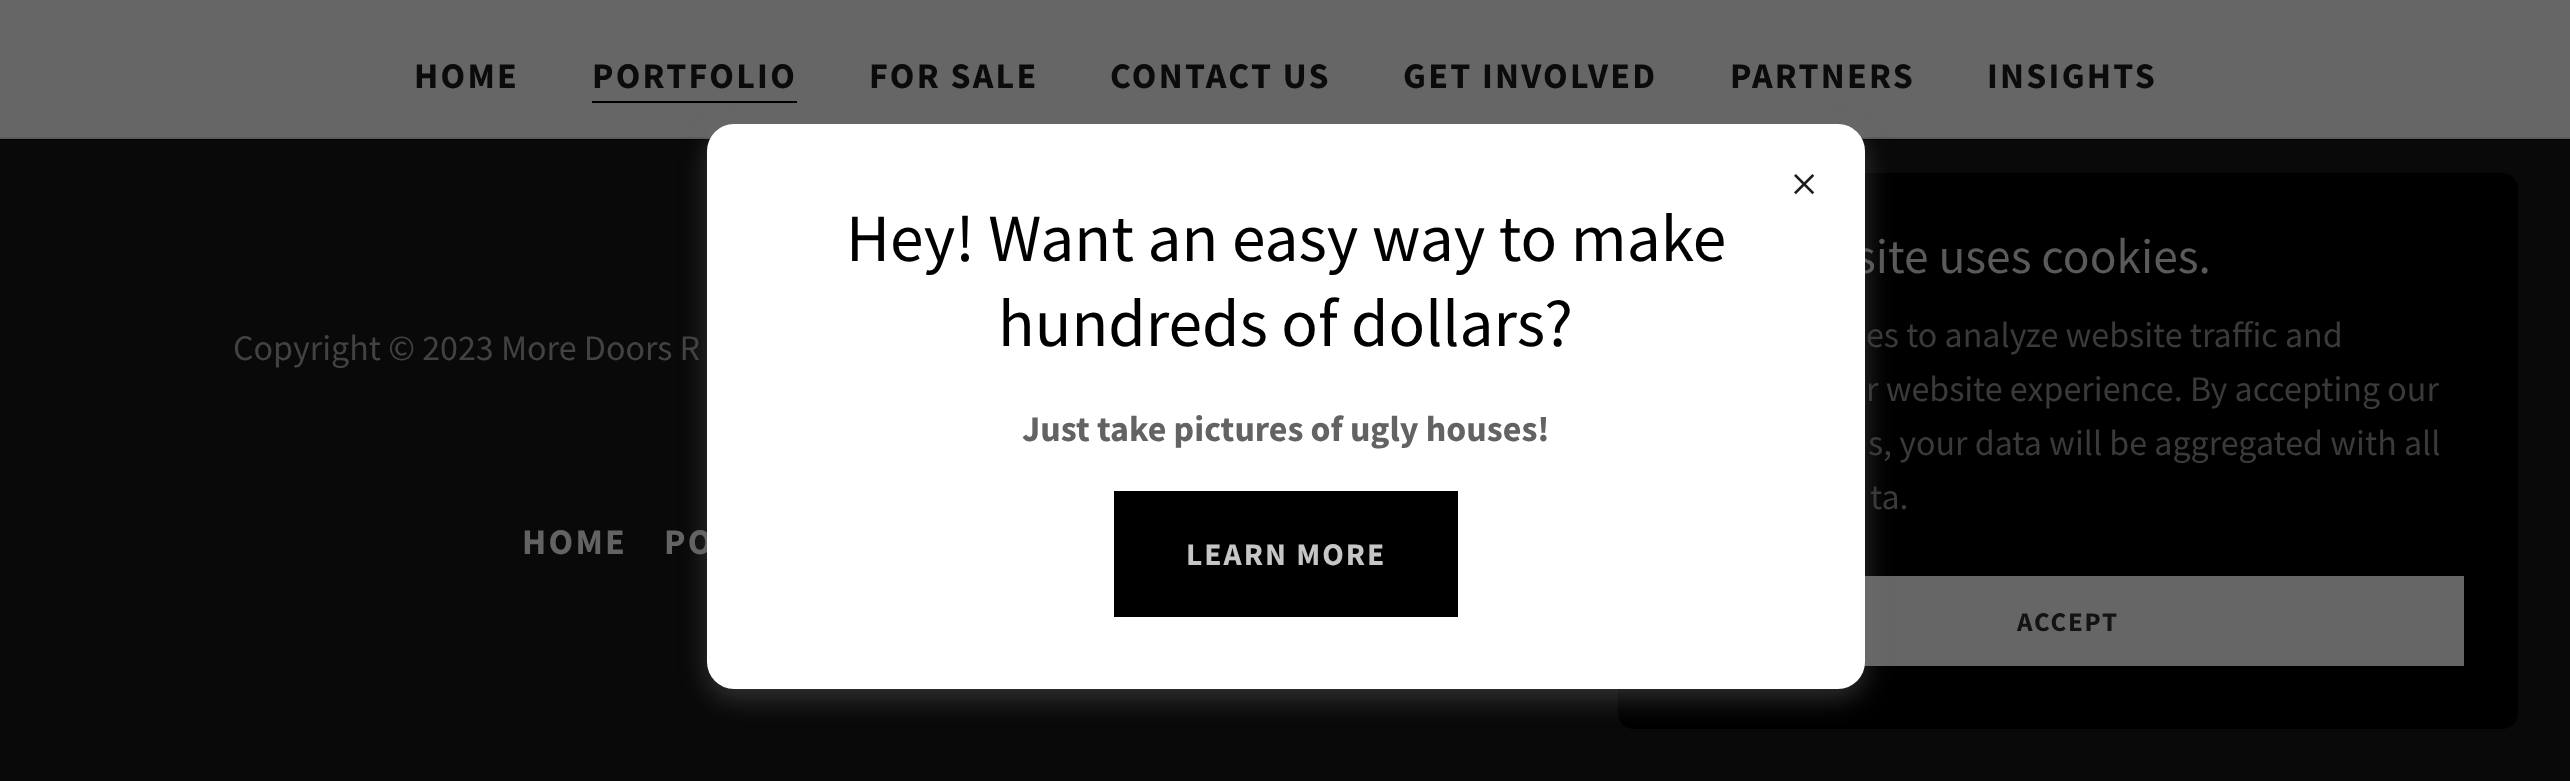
<!DOCTYPE html>
<meta charset="utf-8">
<style>body { margin: 0 } canvas { display: block }</style>
<canvas id="canvas" width="2570" height="781"></canvas>
<img id="img1" src="img_01.png" hidden>
<script>
window.onload = function () {
	const canvas = document.getElementById("canvas");
	const ctx = canvas.getContext("2d");
	ctx.miterLimit = 4;
	ctx.fontKerning = "normal";
	function txt(s, x, y) {
		ctx.fillText(s, x, y);
	}
	function fill(x, y, w, h) {
		ctx.fillRect(x, y, w, h);
	}
	function round(x, y, w, h, r) {
		ctx.beginPath();
		ctx.roundRect(x, y, w, h, r);
		ctx.fill();
	}
	function img(id, x, y, w, h) {
		ctx.drawImage(document.getElementById(id), x, y, w, h);
	}

	ctx.fillStyle = "#090909";
	fill(0, 0, 2570, 781);
	ctx.fillStyle = "#000000";
	fill(0, 139, 2570, 1);
	ctx.fillStyle = "#666666";
	fill(0, 0, 2570, 137);
	ctx.fillStyle = "#000000";
	fill(592, 101, 205, 2);
	ctx.fillStyle = "#5A5A5A";
	fill(0, 137, 2570, 2);
	ctx.fillStyle = "#000000";
	round(1618, 173, 900, 556, 16);
	ctx.fillStyle = "#666666";
	fill(1864, 576, 600, 90);
	ctx.fillStyle = "rgba(117, 117, 117, 0.4)";
	ctx.filter = "blur(13.5px)";
	ctx.beginPath();
	ctx.roundRect(707, 133, 1158, 565, 27);
	ctx.fill();
	ctx.filter = "none";
	ctx.letterSpacing = "2.25px";
	ctx.font = "bold 36px Source Sans Pro";
	ctx.fillStyle = "#0B0B0B";
	txt("HOME", 414, 88);
	txt("PORTFOLIO", 592, 88);
	txt("FOR SALE", 869, 88);
	txt("CONTACT US", 1110, 88);
	txt("GET INVOLVED", 1403, 88);
	txt("PARTNERS", 1730, 88);
	txt("INSIGHTS", 1987, 88);
	ctx.letterSpacing = "0px";
	ctx.font = "36px Source Sans Pro";
	ctx.fillStyle = "#424242";
	txt("Copyright © 2023 More Doors R", 233, 360);
	ctx.letterSpacing = "2.25px";
	ctx.font = "bold 36px Source Sans Pro";
	ctx.fillStyle = "#636363";
	txt("HOME", 522, 554);
	txt("PO", 664, 554);
	ctx.letterSpacing = "0px";
	ctx.font = "49.5px Source Sans Pro";
	ctx.fillStyle = "#5A5A5A";
	txt("site uses cookies.", 1855, 273);
	ctx.fillStyle = "#FFFFFF";
	round(707, 124, 1158, 565, 27);
	img("img1", 1794, 174, 21, 21);
	ctx.fillStyle = "#000000";
	fill(1114, 491, 344, 126);
	ctx.letterSpacing = "2px";
	ctx.font = "bold 31.5px Source Sans Pro";
	ctx.fillStyle = "#C6C6C6";
	txt("LEARN MORE", 1186, 565);
	ctx.letterSpacing = "0px";
	ctx.font = "bold 36px Source Sans Pro";
	ctx.fillStyle = "#636363";
	txt("Just take pictures of ugly houses!", 1022, 441);
	ctx.font = "67.5px Source Sans Pro";
	ctx.fillStyle = "#000000";
	txt("hundreds of dollars?", 998, 346);
	txt("Hey! Want an easy way to make", 846, 261);
	ctx.font = "36px Source Sans Pro";
	ctx.fillStyle = "#3A3A3A";
	txt("es to analyze website traffic and", 1866, 347);
	txt("r website experience. By accepting our", 1866, 401);
	txt("s, your data will be aggregated with all", 1868, 455);
	txt("ta.", 1870, 509);
	ctx.letterSpacing = "1.75px";
	ctx.font = "bold 27px Source Sans Pro";
	ctx.fillStyle = "#131313";
	txt("ACCEPT", 2017, 631);
};
</script>
